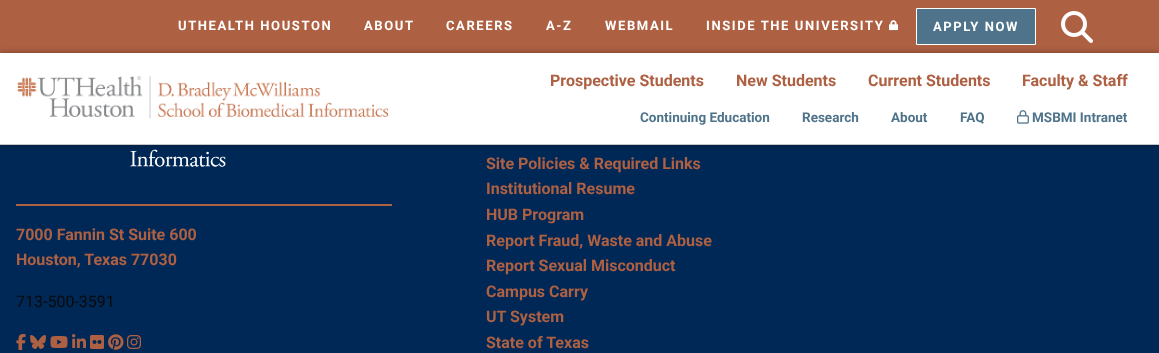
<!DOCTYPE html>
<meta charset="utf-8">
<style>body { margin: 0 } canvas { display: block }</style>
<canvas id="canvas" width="1159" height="353"></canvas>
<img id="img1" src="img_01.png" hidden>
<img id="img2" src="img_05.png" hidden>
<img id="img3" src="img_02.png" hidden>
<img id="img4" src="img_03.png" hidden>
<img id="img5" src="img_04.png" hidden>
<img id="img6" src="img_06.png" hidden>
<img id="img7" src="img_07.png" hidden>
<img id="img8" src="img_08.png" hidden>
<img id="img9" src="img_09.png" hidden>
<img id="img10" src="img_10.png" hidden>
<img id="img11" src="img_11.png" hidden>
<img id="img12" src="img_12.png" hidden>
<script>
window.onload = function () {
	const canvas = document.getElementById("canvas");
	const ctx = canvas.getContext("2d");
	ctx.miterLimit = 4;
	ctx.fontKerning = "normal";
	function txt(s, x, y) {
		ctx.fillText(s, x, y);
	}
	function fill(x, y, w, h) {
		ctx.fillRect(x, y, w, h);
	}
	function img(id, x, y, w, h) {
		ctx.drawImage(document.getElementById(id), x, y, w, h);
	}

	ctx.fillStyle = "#002856";
	fill(0, 0, 1159, 353);
	ctx.fillStyle = "#AE6042";
	fill(0, 0, 1159, 53);
	img("img1", 889, 20, 10, 11);
	img("img2", 130, 149, 96, 18);
	ctx.fillStyle = "rgba(0, 0, 0, 0.35)";
	ctx.filter = "blur(3px)";
	ctx.beginPath();
	ctx.rect(0, 53, 1159, 92);
	ctx.fill();
	ctx.filter = "none";
	ctx.fillStyle = "#4E738A";
	ctx.beginPath();
	ctx.rect(916.5, 8.5, 119, 36);
	ctx.fill();
	ctx.strokeStyle = "#FFFFFF";
	ctx.stroke();
	img("img3", 1061, 11, 32, 32);
	ctx.fillStyle = "#C6C6C6";
	fill(0, 144, 1159, 1);
	ctx.fillStyle = "#FFFFFF";
	fill(0, 53, 1159, 91);
	img("img4", 17, 76, 371, 43);
	img("img5", 1017, 110, 12, 14);
	ctx.fillStyle = "#AE6042";
	fill(16, 204, 376, 2);
	img("img6", 16, 334, 10, 16);
	img("img7", 30, 335, 16, 14);
	img("img8", 50, 336, 18, 12);
	img("img9", 72, 334, 14, 14);
	img("img10", 90, 335, 14, 14);
	img("img11", 108, 334, 16, 16);
	img("img12", 127, 335, 14, 14);
	ctx.letterSpacing = "1.6px";
	ctx.font = "bold 13px Roboto";
	ctx.fillStyle = "#FFFFFF";
	txt("UTHEALTH HOUSTON", 178, 30);
	txt("ABOUT", 364, 30);
	txt("CAREERS", 446, 30);
	txt("A-Z", 546, 30);
	txt("WEBMAIL", 605, 30);
	txt("INSIDE THE UNIVERSITY", 706, 30);
	txt("APPLY NOW", 933, 31);
	ctx.letterSpacing = "0px";
	ctx.font = "bold 16px Roboto";
	ctx.fillStyle = "#AE6042";
	txt("Prospective Students", 550, 86);
	txt("New Students", 736, 86);
	txt("Current Students", 868, 86);
	txt("Faculty & Staff", 1022, 86);
	ctx.font = "bold 13.5px Roboto";
	ctx.fillStyle = "#4E738A";
	txt("Continuing Education", 640, 122);
	txt("Research", 802, 122);
	txt("About", 891, 122);
	txt("FAQ", 960, 122);
	txt("MSBMI Intranet", 1032, 122);
	ctx.font = "bold 16px Roboto";
	ctx.fillStyle = "#AE6042";
	txt("7000 Fannin St Suite 600", 16, 240);
	txt("Houston, Texas 77030", 16, 265);
	ctx.font = "16px Roboto";
	ctx.fillStyle = "#0A0A0A";
	txt("713-500-3591", 16, 307);
	ctx.font = "bold 16px Roboto";
	ctx.fillStyle = "#AE6042";
	txt("Site Policies & Required Links", 486, 169);
	txt("Institutional Resume", 486, 194);
	txt("HUB Program", 486, 220);
	txt("Report Fraud, Waste and Abuse", 486, 246);
	txt("Report Sexual Misconduct", 486, 271);
	txt("Campus Carry", 486, 297);
	txt("UT System", 486, 322);
	txt("State of Texas", 486, 348);
};
</script>
